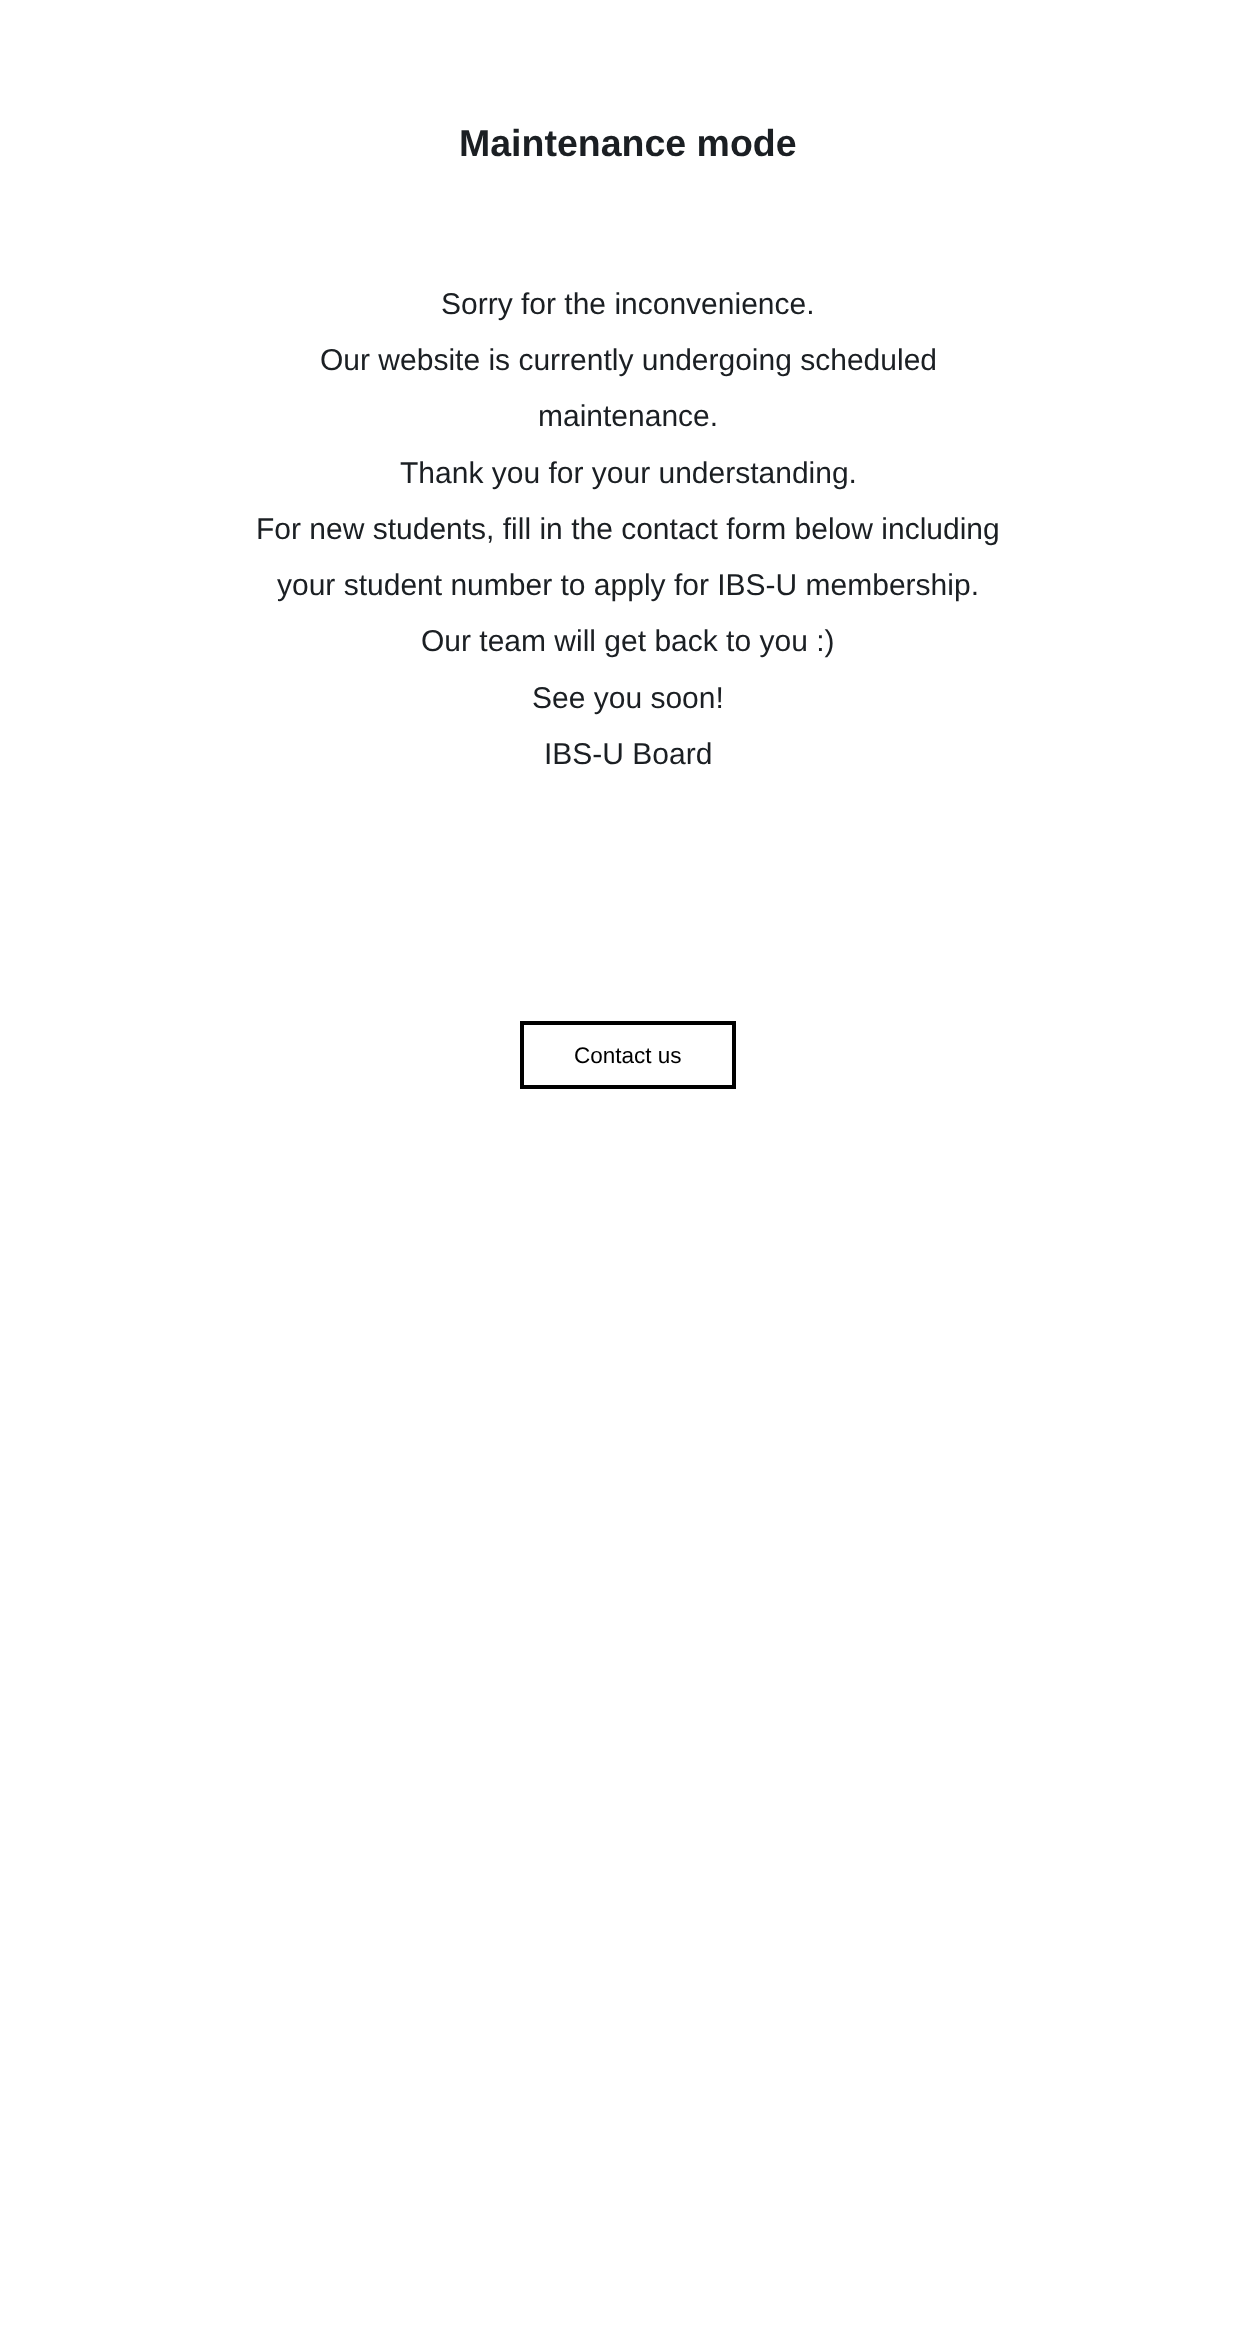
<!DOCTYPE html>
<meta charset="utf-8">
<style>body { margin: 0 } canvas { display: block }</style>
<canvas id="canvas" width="1256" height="2349"></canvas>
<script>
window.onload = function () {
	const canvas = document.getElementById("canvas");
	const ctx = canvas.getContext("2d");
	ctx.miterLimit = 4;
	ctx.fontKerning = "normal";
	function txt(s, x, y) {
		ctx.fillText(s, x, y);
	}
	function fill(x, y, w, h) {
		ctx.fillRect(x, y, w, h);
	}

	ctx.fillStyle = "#FFFFFF";
	fill(0, 0, 1256, 2349);
	ctx.strokeStyle = "#000000";
	ctx.lineWidth = 4;
	ctx.strokeRect(522, 1023, 212, 64);
	ctx.font = "bold 37.5px Liberation Sans";
	ctx.fillStyle = "#1B1F23";
	txt("Maintenance mode", 459, 156);
	ctx.font = "30px Liberation Sans";
	txt("Sorry for the inconvenience.", 441, 314);
	txt("Our website is currently undergoing scheduled", 320, 370);
	txt("maintenance.", 538, 426);
	txt("Thank you for your understanding.", 400, 483);
	txt("For new students, fill in the contact form below including", 256, 539);
	txt("your student number to apply for IBS-U membership.", 277, 595);
	txt("Our team will get back to you :)", 421, 651);
	txt("See you soon!", 532, 708);
	txt("IBS-U Board", 544, 764);
	ctx.font = "22.5px Liberation Sans";
	ctx.fillStyle = "#000000";
	txt("Contact us", 574, 1063);
};
</script>
